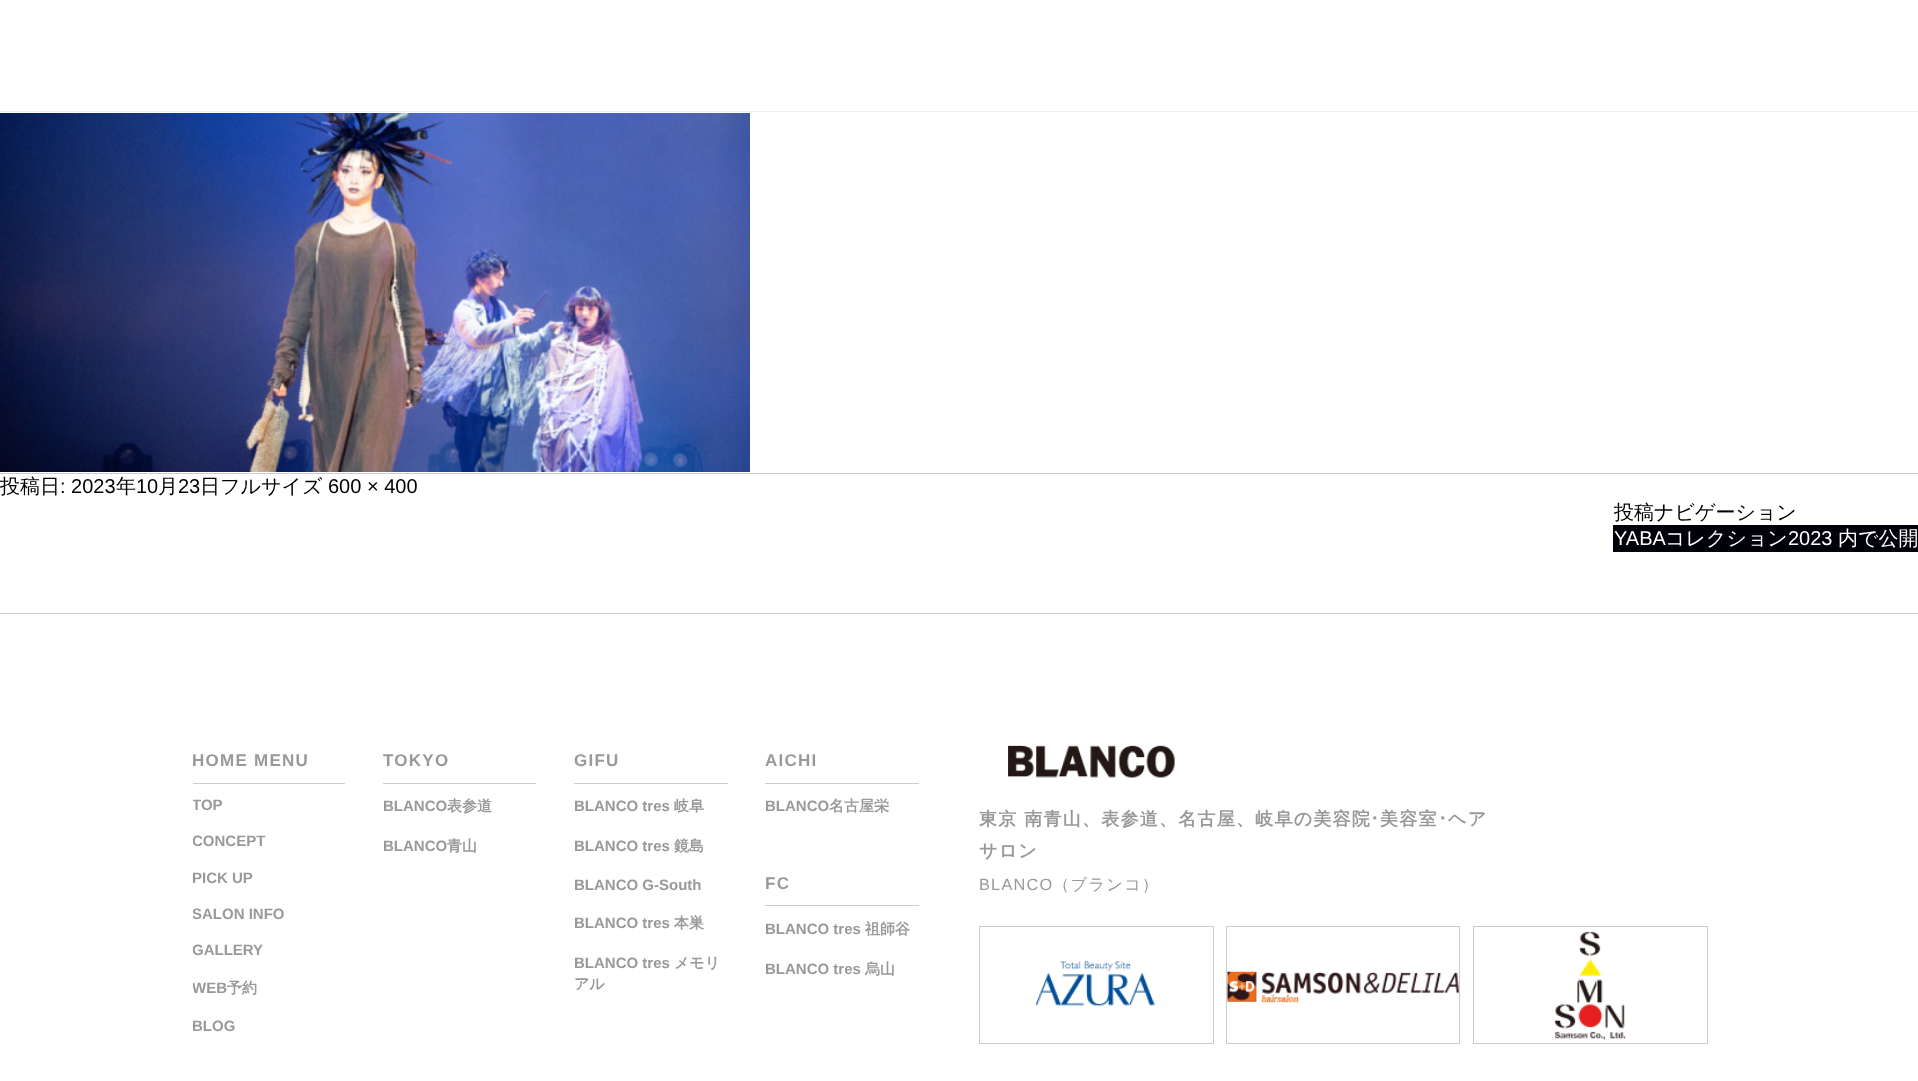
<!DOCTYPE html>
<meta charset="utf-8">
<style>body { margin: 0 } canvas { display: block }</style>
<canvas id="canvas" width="1918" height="1081"></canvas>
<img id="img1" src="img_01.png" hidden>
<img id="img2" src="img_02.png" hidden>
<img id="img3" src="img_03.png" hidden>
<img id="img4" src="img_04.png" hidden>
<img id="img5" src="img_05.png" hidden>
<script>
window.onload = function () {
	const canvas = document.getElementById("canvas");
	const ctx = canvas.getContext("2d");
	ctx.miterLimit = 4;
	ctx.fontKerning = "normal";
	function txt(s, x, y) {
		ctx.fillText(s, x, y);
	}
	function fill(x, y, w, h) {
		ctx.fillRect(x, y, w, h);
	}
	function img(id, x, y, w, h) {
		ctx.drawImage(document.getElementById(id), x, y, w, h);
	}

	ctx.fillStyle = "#FFFFFF";
	fill(0, 0, 1918, 1081);
	ctx.fillStyle = "#EEEEEE";
	fill(0, 111, 1918, 1);
	img("img1", 0, 113, 750, 359);
	ctx.fillStyle = "#CCCCCC";
	fill(0, 473, 1918, 1);
	ctx.fillStyle = "#000008";
	fill(1613, 525, 305, 27);
	ctx.fillStyle = "#CCCCCC";
	fill(0, 613, 1918, 1);
	fill(193, 783, 152, 1);
	fill(383, 783, 153, 1);
	fill(574, 783, 154, 1);
	fill(765, 783, 154, 1);
	fill(765, 905, 154, 1);
	img("img2", 1008, 745, 167, 33);
	ctx.strokeStyle = "#CCCCCC";
	ctx.strokeRect(979.5, 926.5, 234, 117);
	img("img3", 1035, 961, 120, 45);
	ctx.strokeRect(1226.5, 926.5, 233, 117);
	img("img4", 1227, 971, 232, 33);
	ctx.strokeRect(1473.5, 926.5, 234, 117);
	img("img5", 1554, 931, 72, 109);
	ctx.font = "500 20px WenQuanYi Zen Hei";
	ctx.fillStyle = "#000000";
	txt("投稿日", 0, 493);
	ctx.font = "20px Liberation Sans";
	txt(": 2023", 60, 493);
	ctx.font = "500 20px WenQuanYi Zen Hei";
	txt("年", 116, 493);
	ctx.font = "20px Liberation Sans";
	txt("10", 136, 493);
	ctx.font = "500 20px WenQuanYi Zen Hei";
	txt("月", 158, 493);
	ctx.font = "20px Liberation Sans";
	txt("23", 178, 493);
	ctx.font = "500 20px WenQuanYi Zen Hei";
	txt("日フルサイズ", 200, 493);
	ctx.font = "20px Liberation Sans";
	txt("600 × 400", 328, 493);
	ctx.font = "500 20px WenQuanYi Zen Hei";
	txt("投稿ナビゲーション", 1614, 519);
	ctx.font = "20px Liberation Sans";
	ctx.fillStyle = "#FFFFFF";
	txt("YABA", 1614, 545);
	ctx.font = "500 20px WenQuanYi Zen Hei";
	txt("コレクション", 1665, 545);
	ctx.font = "20px Liberation Sans";
	txt("2023", 1788, 545);
	ctx.font = "500 20px WenQuanYi Zen Hei";
	txt("内で公開", 1838, 545);
	ctx.letterSpacing = "1.25px";
	ctx.font = "bold 17px Liberation Sans";
	ctx.fillStyle = "#999999";
	txt("HOME MENU", 192, 766);
	ctx.save();
	ctx.beginPath();
	ctx.rect(193, 714, 1535, 340);
	ctx.clip();
	ctx.letterSpacing = "0px";
	ctx.font = "bold 15px Liberation Sans";
	txt("TOP", 192, 810);
	txt("CONCEPT", 192, 846);
	txt("PICK UP", 192, 883);
	txt("SALON INFO", 192, 919);
	txt("GALLERY", 192, 955);
	txt("WEB", 192, 993);
	ctx.restore();
	ctx.letterSpacing = "0px";
	ctx.font = "bold 15px WenQuanYi Zen Hei";
	txt("予約", 227, 993);
	ctx.save();
	ctx.beginPath();
	ctx.rect(193, 714, 1535, 340);
	ctx.clip();
	ctx.font = "bold 15px Liberation Sans";
	txt("BLOG", 192, 1031);
	ctx.restore();
	ctx.letterSpacing = "1.25px";
	ctx.font = "bold 17px Liberation Sans";
	txt("TOKYO", 383, 766);
	ctx.letterSpacing = "0px";
	ctx.font = "bold 15px Liberation Sans";
	txt("BLANCO", 383, 811);
	ctx.font = "bold 15px WenQuanYi Zen Hei";
	txt("表参道", 447, 811);
	ctx.font = "bold 15px Liberation Sans";
	txt("BLANCO", 383, 851);
	ctx.font = "bold 15px WenQuanYi Zen Hei";
	txt("青山", 447, 851);
	ctx.letterSpacing = "1.25px";
	ctx.font = "bold 17px Liberation Sans";
	txt("GIFU", 574, 766);
	ctx.letterSpacing = "0px";
	ctx.font = "bold 15px Liberation Sans";
	txt("BLANCO tres", 574, 811);
	ctx.font = "bold 15px WenQuanYi Zen Hei";
	txt("岐阜", 674, 811);
	ctx.font = "bold 15px Liberation Sans";
	txt("BLANCO tres", 574, 851);
	ctx.font = "bold 15px WenQuanYi Zen Hei";
	txt("鏡島", 674, 851);
	ctx.font = "bold 15px Liberation Sans";
	txt("BLANCO G-South", 574, 890);
	txt("BLANCO tres", 574, 928);
	ctx.font = "bold 15px WenQuanYi Zen Hei";
	txt("本巣", 674, 928);
	ctx.font = "bold 15px Liberation Sans";
	txt("BLANCO tres", 574, 968);
	ctx.font = "bold 15px WenQuanYi Zen Hei";
	txt("メモリ", 674, 968);
	txt("アル", 574, 989);
	ctx.letterSpacing = "1.25px";
	ctx.font = "bold 17px Liberation Sans";
	txt("AICHI", 765, 766);
	ctx.letterSpacing = "0px";
	ctx.font = "bold 15px Liberation Sans";
	txt("BLANCO", 765, 811);
	ctx.font = "bold 15px WenQuanYi Zen Hei";
	txt("名古屋栄", 829, 811);
	ctx.letterSpacing = "1.25px";
	ctx.font = "bold 17px Liberation Sans";
	txt("FC", 765, 889);
	ctx.letterSpacing = "0px";
	ctx.font = "bold 15px Liberation Sans";
	txt("BLANCO tres", 765, 934);
	ctx.font = "bold 15px WenQuanYi Zen Hei";
	txt("祖師谷", 865, 934);
	ctx.font = "bold 15px Liberation Sans";
	txt("BLANCO tres", 765, 974);
	ctx.font = "bold 15px WenQuanYi Zen Hei";
	txt("烏山", 865, 974);
	ctx.letterSpacing = "1.25px";
	ctx.font = "bold 18px WenQuanYi Zen Hei";
	txt("東京 南青山、表参道、名古屋、岐阜の美容院", 979, 825);
	ctx.font = "bold 18px IPAPGothic";
	txt("･", 1370, 825);
	ctx.font = "bold 18px WenQuanYi Zen Hei";
	txt("美容室", 1380, 825);
	ctx.font = "bold 18px IPAPGothic";
	txt("･", 1438, 825);
	ctx.font = "bold 18px WenQuanYi Zen Hei";
	txt("ヘア", 1448, 825);
	txt("サロン", 979, 857);
	ctx.font = "16.25px Liberation Sans";
	txt("BLANCO", 979, 890);
	ctx.font = "500 16.25px WenQuanYi Zen Hei";
	txt("（ブランコ）", 1053, 890);
};
</script>
